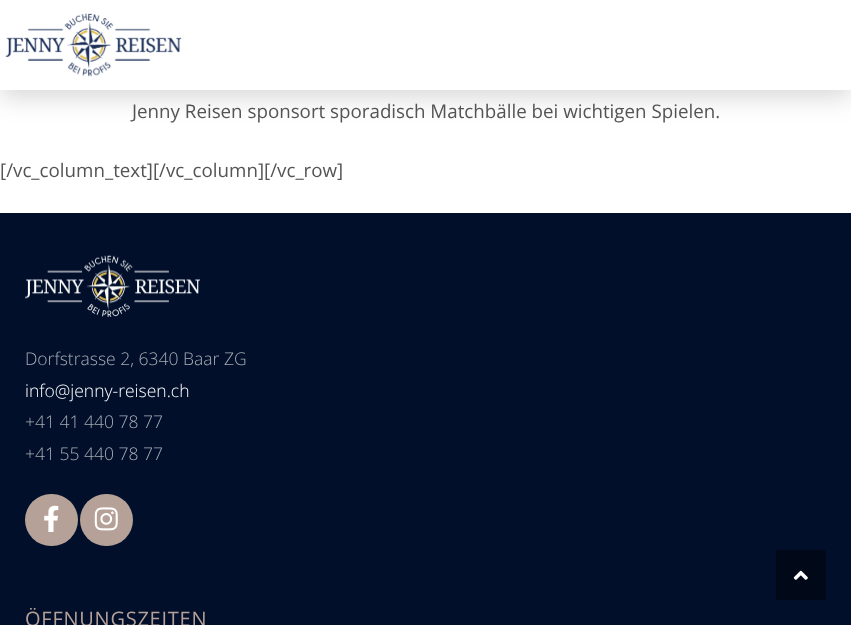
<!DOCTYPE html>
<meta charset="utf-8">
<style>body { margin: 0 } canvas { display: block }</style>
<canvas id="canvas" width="851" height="625"></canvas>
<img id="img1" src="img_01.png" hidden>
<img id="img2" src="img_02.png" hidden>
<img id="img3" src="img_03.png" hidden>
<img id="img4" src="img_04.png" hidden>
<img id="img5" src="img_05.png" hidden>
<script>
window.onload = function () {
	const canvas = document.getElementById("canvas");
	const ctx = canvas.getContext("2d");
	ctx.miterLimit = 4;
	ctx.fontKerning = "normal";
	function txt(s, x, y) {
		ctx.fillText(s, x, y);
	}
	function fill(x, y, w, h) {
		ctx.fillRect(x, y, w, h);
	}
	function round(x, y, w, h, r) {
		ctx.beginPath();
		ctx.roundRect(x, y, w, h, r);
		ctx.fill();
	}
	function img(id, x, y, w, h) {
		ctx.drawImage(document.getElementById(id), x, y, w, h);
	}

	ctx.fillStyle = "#FFFFFF";
	fill(0, 0, 851, 625);
	ctx.fillStyle = "rgba(0, 0, 0, 0.15)";
	ctx.filter = "blur(12.5px)";
	ctx.beginPath();
	ctx.rect(0, 8, 851, 90);
	ctx.fill();
	ctx.filter = "none";
	ctx.fillStyle = "#FFFFFF";
	fill(0, 0, 851, 90);
	img("img1", 5, 13, 177, 64);
	ctx.fillStyle = "#010F2A";
	fill(0, 213, 851, 412);
	img("img2", 25, 255, 175, 62);
	ctx.fillStyle = "#B5A198";
	round(25, 494, 53, 52, 26);
	img("img3", 44, 505, 15, 27);
	round(80, 494, 53, 52, 26);
	img("img4", 94, 507, 24, 24);
	ctx.fillStyle = "#010919";
	round(776, 550, 50, 50, 2.5);
	img("img5", 793, 570, 15, 10);
	ctx.font = "18.75px Open Sans";
	ctx.fillStyle = "#545454";
	txt("Jenny Reisen sponsort sporadisch Matchbälle bei wichtigen Spielen.", 132, 118);
	txt("[/vc_column_text][/vc_column][/vc_row]", 0, 177);
	ctx.font = "300 17.5px Open Sans";
	ctx.fillStyle = "#A6ABB4";
	txt("Dorfstrasse 2, 6340 Baar ZG", 25, 365);
	ctx.fillStyle = "#FFFFFF";
	txt("info@jenny-reisen.ch", 25, 397);
	ctx.fillStyle = "#A6ABB4";
	txt("+41 41 440 78 77", 25, 428);
	txt("+41 55 440 78 77", 25, 460);
	ctx.letterSpacing = "0.75px";
	ctx.font = "20px Open Sans";
	ctx.fillStyle = "#B5A198";
	txt("ÖFFNUNGSZEITEN", 25, 626);
};
</script>
